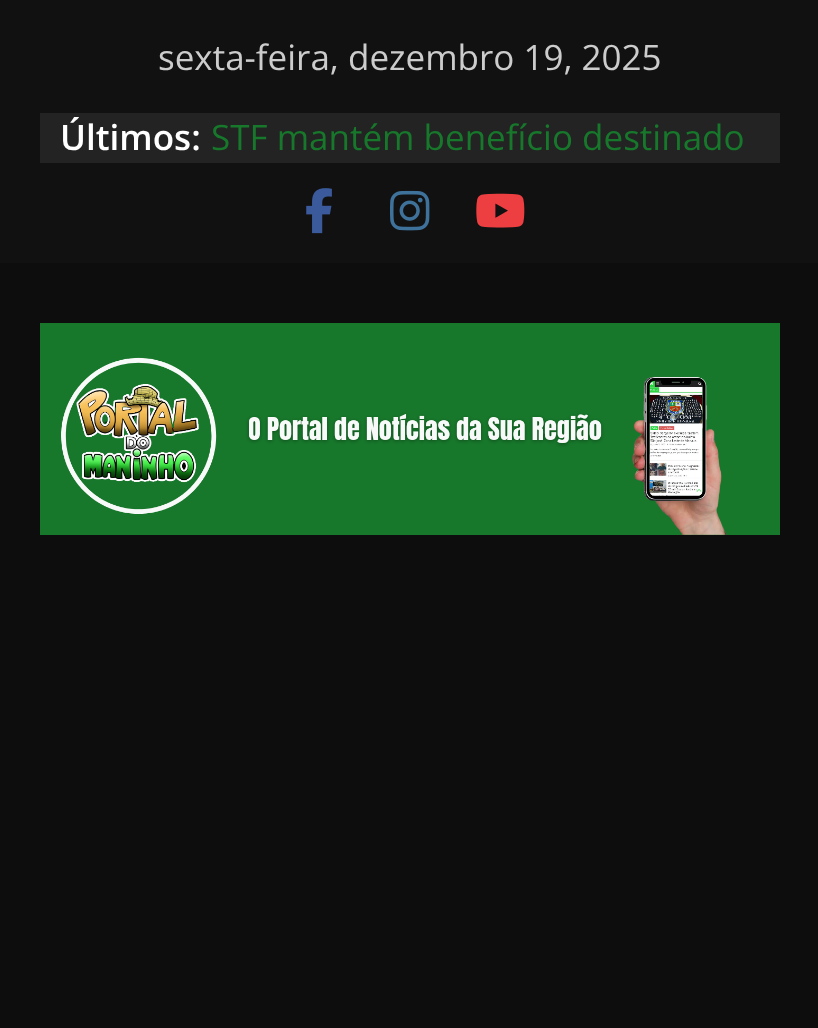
<!DOCTYPE html>
<meta charset="utf-8">
<style>body { margin: 0 } canvas { display: block }</style>
<canvas id="canvas" width="818" height="1028"></canvas>
<img id="img1" src="img_01.png" hidden>
<img id="img2" src="img_02.png" hidden>
<img id="img3" src="img_03.png" hidden>
<img id="img4" src="img_04.png" hidden>
<script>
window.onload = function () {
	const canvas = document.getElementById("canvas");
	const ctx = canvas.getContext("2d");
	ctx.miterLimit = 4;
	ctx.fontKerning = "normal";
	function txt(s, x, y) {
		ctx.fillText(s, x, y);
	}
	function fill(x, y, w, h) {
		ctx.fillRect(x, y, w, h);
	}
	function img(id, x, y, w, h) {
		ctx.drawImage(document.getElementById(id), x, y, w, h);
	}

	ctx.fillStyle = "#111111";
	fill(0, 0, 818, 1028);
	ctx.fillStyle = "#232323";
	fill(40, 113, 740, 50);
	img("img1", 306, 188, 26, 46);
	img("img2", 390, 190, 40, 41);
	img("img3", 476, 193, 49, 35);
	ctx.fillStyle = "#0D0D0D";
	fill(0, 263, 818, 765);
	ctx.fillStyle = "#17772B";
	fill(40, 323, 740, 212);
	img("img4", 61, 357, 666, 178);
	ctx.font = "35px Open Sans";
	ctx.fillStyle = "#CCCCCC";
	txt("sexta-feira, dezembro 19, 2025", 158, 70);
	ctx.font = "600 35px Open Sans";
	ctx.fillStyle = "#FFFFFF";
	txt("Últimos:", 60, 150);
	ctx.font = "35px Open Sans";
	ctx.fillStyle = "#17772B";
	txt("STF mantém benefício destinado", 211, 150);
};
</script>
